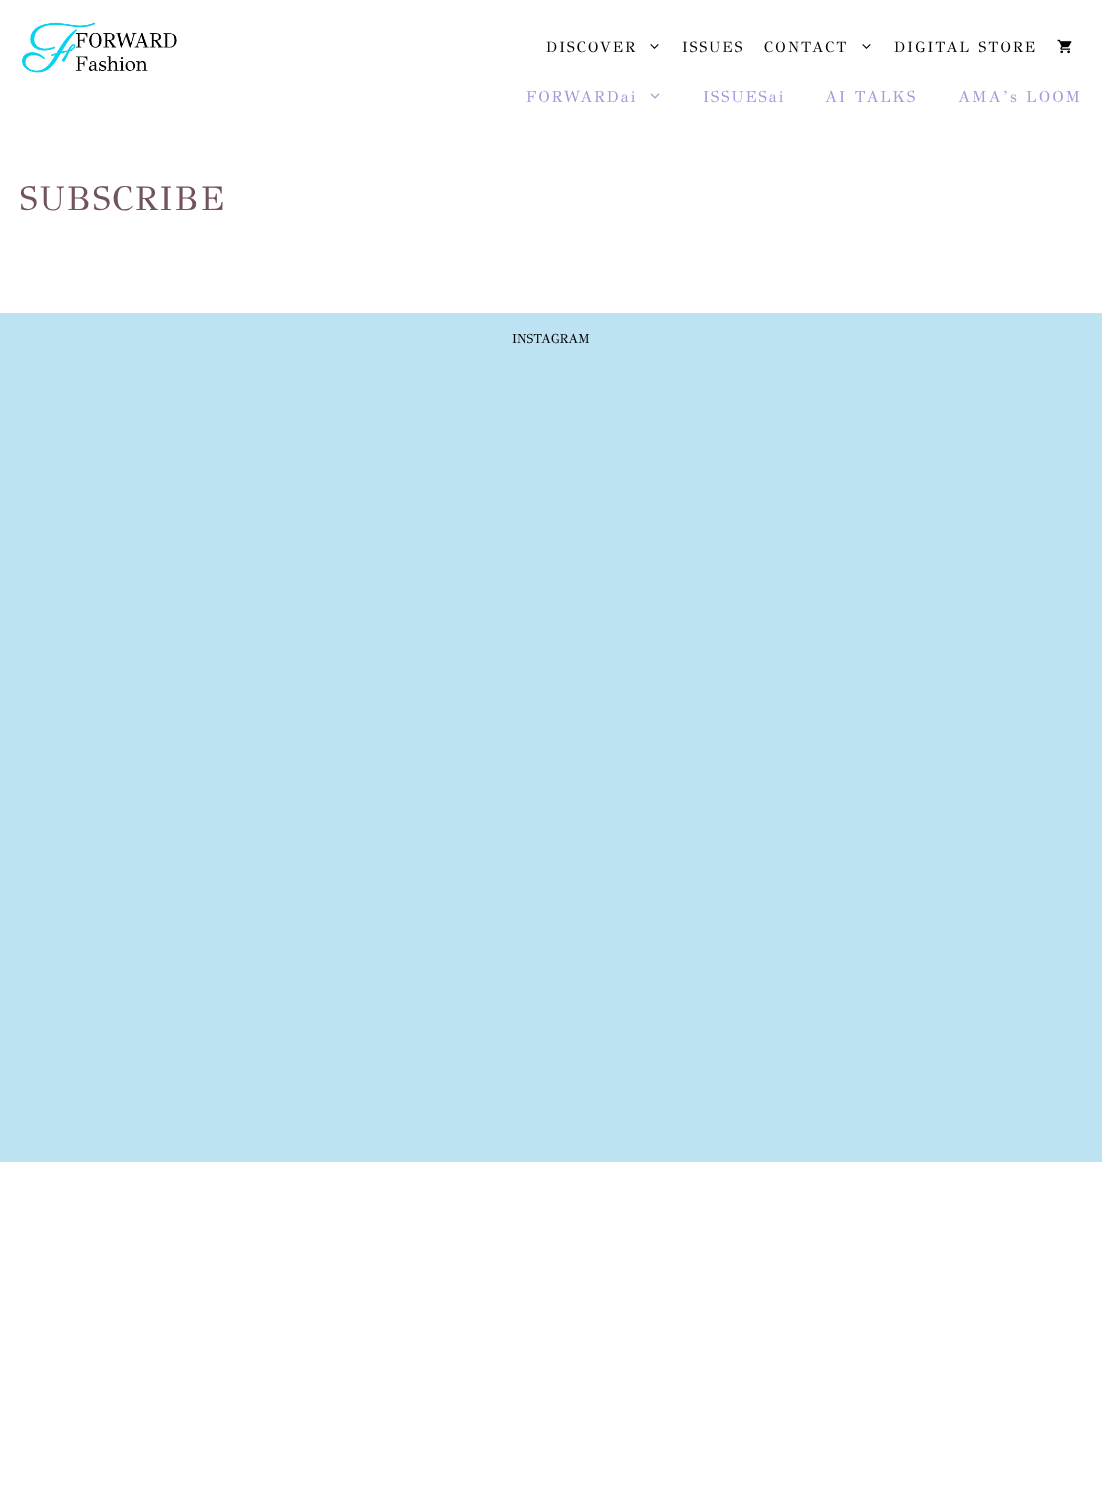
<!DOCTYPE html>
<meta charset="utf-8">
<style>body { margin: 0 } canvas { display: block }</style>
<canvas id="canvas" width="1102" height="1510"></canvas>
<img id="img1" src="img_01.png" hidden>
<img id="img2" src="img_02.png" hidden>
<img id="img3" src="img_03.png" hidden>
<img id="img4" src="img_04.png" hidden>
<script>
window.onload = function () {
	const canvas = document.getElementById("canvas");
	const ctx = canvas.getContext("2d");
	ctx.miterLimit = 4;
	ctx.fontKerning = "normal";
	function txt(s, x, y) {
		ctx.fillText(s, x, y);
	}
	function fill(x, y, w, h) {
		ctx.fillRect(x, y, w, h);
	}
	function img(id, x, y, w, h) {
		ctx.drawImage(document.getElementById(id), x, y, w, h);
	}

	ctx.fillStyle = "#FFFFFF";
	fill(0, 0, 1102, 1510);
	img("img1", 22, 22, 155, 51);
	img("img2", 650, 44, 9, 5);
	img("img2", 862, 44, 9, 5);
	img("img3", 1057, 39, 15, 15);
	img("img4", 650, 93, 10, 6);
	ctx.fillStyle = "#BDE3F3";
	fill(0, 313, 1102, 849);
	ctx.letterSpacing = "2px";
	ctx.font = "15px GFS Didot";
	ctx.fillStyle = "#000000";
	txt("DISCOVER", 546, 52);
	txt("ISSUES", 682, 52);
	txt("CONTACT", 764, 52);
	txt("DIGITAL STORE", 894, 52);
	ctx.font = "16px GFS Didot";
	ctx.fillStyle = "#AA96DA";
	txt("FORWARDai", 526, 102);
	txt("ISSUESai", 703, 102);
	txt("AI TALKS", 825, 102);
	txt("AMA’s LOOM", 958, 102);
	ctx.font = "34px GFS Didot";
	ctx.fillStyle = "#71535C";
	txt("SUBSCRIBE", 20, 210);
	ctx.letterSpacing = "0px";
	ctx.font = "13px GFS Didot";
	ctx.fillStyle = "#000000";
	txt("INSTAGRAM", 512, 343);
};
</script>
